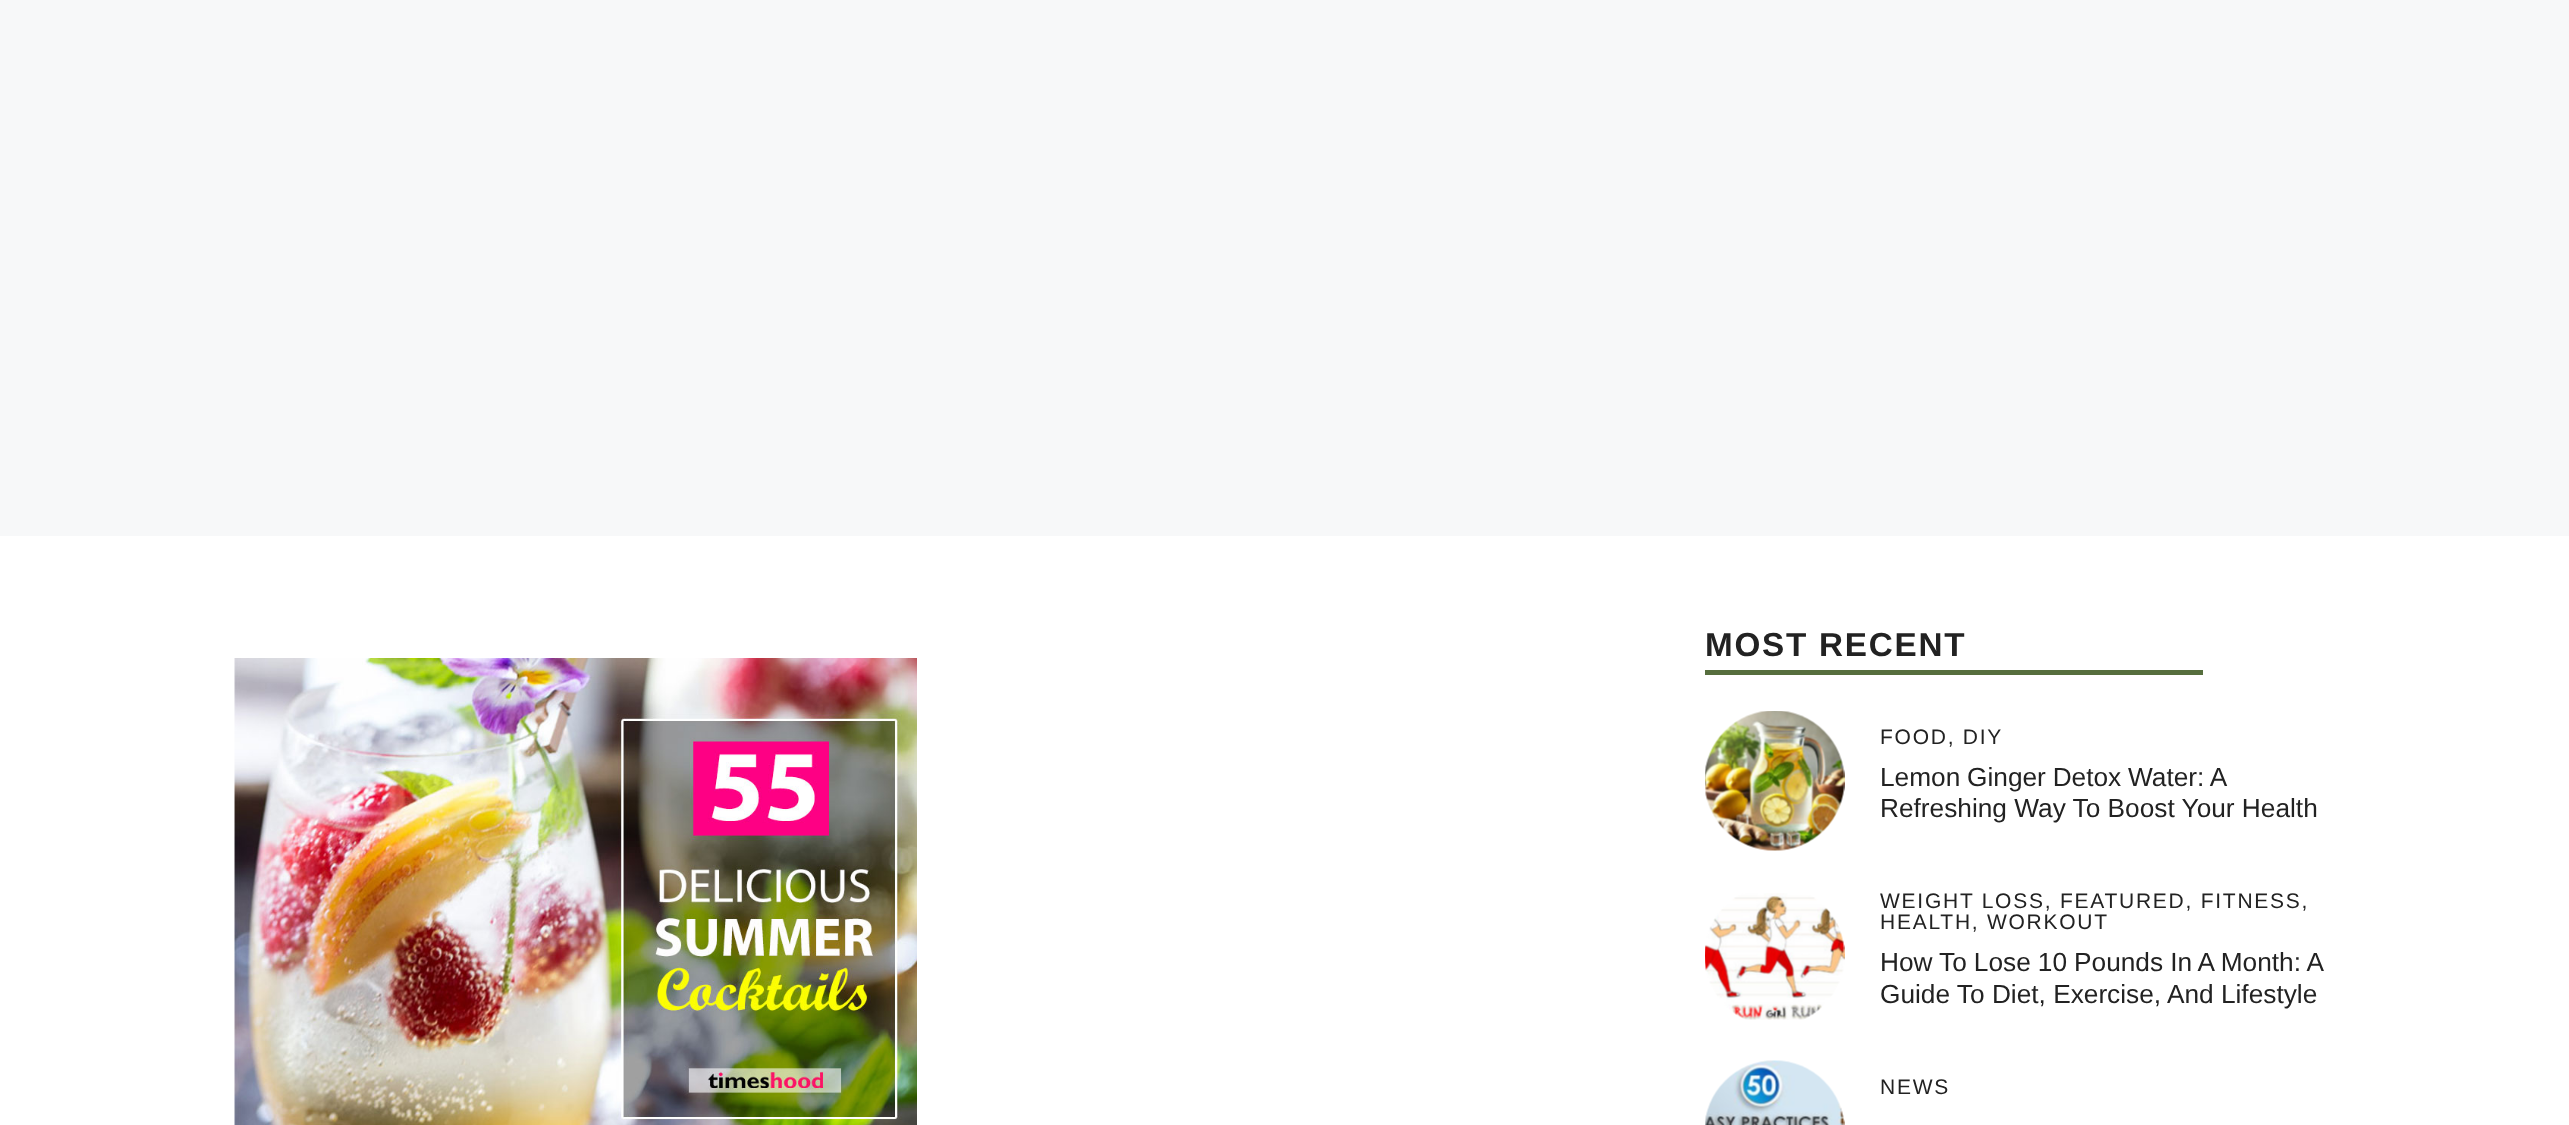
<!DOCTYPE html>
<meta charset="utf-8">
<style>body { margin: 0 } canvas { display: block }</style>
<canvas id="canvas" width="2569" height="1125"></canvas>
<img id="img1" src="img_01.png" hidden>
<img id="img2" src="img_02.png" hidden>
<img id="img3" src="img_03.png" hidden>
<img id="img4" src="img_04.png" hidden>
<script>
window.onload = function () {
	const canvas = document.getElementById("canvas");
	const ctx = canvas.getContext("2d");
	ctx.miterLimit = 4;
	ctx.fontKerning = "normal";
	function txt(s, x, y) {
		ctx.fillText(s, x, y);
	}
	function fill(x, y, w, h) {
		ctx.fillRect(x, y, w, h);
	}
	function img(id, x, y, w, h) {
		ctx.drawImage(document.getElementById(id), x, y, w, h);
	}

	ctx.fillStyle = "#FFFFFF";
	fill(0, 0, 2569, 1125);
	ctx.fillStyle = "#F7F8F9";
	fill(0, 0, 2569, 536);
	img("img1", 234, 658, 683, 467);
	ctx.fillStyle = "#566E3D";
	fill(1705, 670, 498, 5);
	img("img2", 1705, 711, 140, 140);
	img("img3", 1705, 893, 140, 127);
	img("img4", 1705, 1060, 140, 65);
	ctx.letterSpacing = "1.75px";
	ctx.font = "bold 33.25px Liberation Sans";
	ctx.fillStyle = "#222222";
	txt("MOST RECENT", 1705, 656);
	ctx.font = "21px Liberation Sans";
	txt("FOOD, DIY", 1880, 744);
	ctx.letterSpacing = "0px";
	ctx.wordSpacing = "-0.5px";
	ctx.font = "26.25px Liberation Sans";
	txt("Lemon Ginger Detox Water: A", 1880, 786);
	ctx.wordSpacing = "0px";
	txt("Refreshing Way To Boost Your Health", 1880, 817);
	ctx.letterSpacing = "1.75px";
	ctx.font = "21px Liberation Sans";
	txt("WEIGHT LOSS, FEATURED, FITNESS,", 1880, 908);
	txt("HEALTH, WORKOUT", 1880, 929);
	ctx.letterSpacing = "0px";
	ctx.wordSpacing = "-0.25px";
	ctx.font = "26.25px Liberation Sans";
	txt("How To Lose 10 Pounds In A Month: A", 1880, 971);
	ctx.wordSpacing = "0px";
	txt("Guide To Diet, Exercise, And Lifestyle", 1880, 1003);
	ctx.letterSpacing = "1.75px";
	ctx.font = "21px Liberation Sans";
	txt("NEWS", 1880, 1094);
};
</script>
